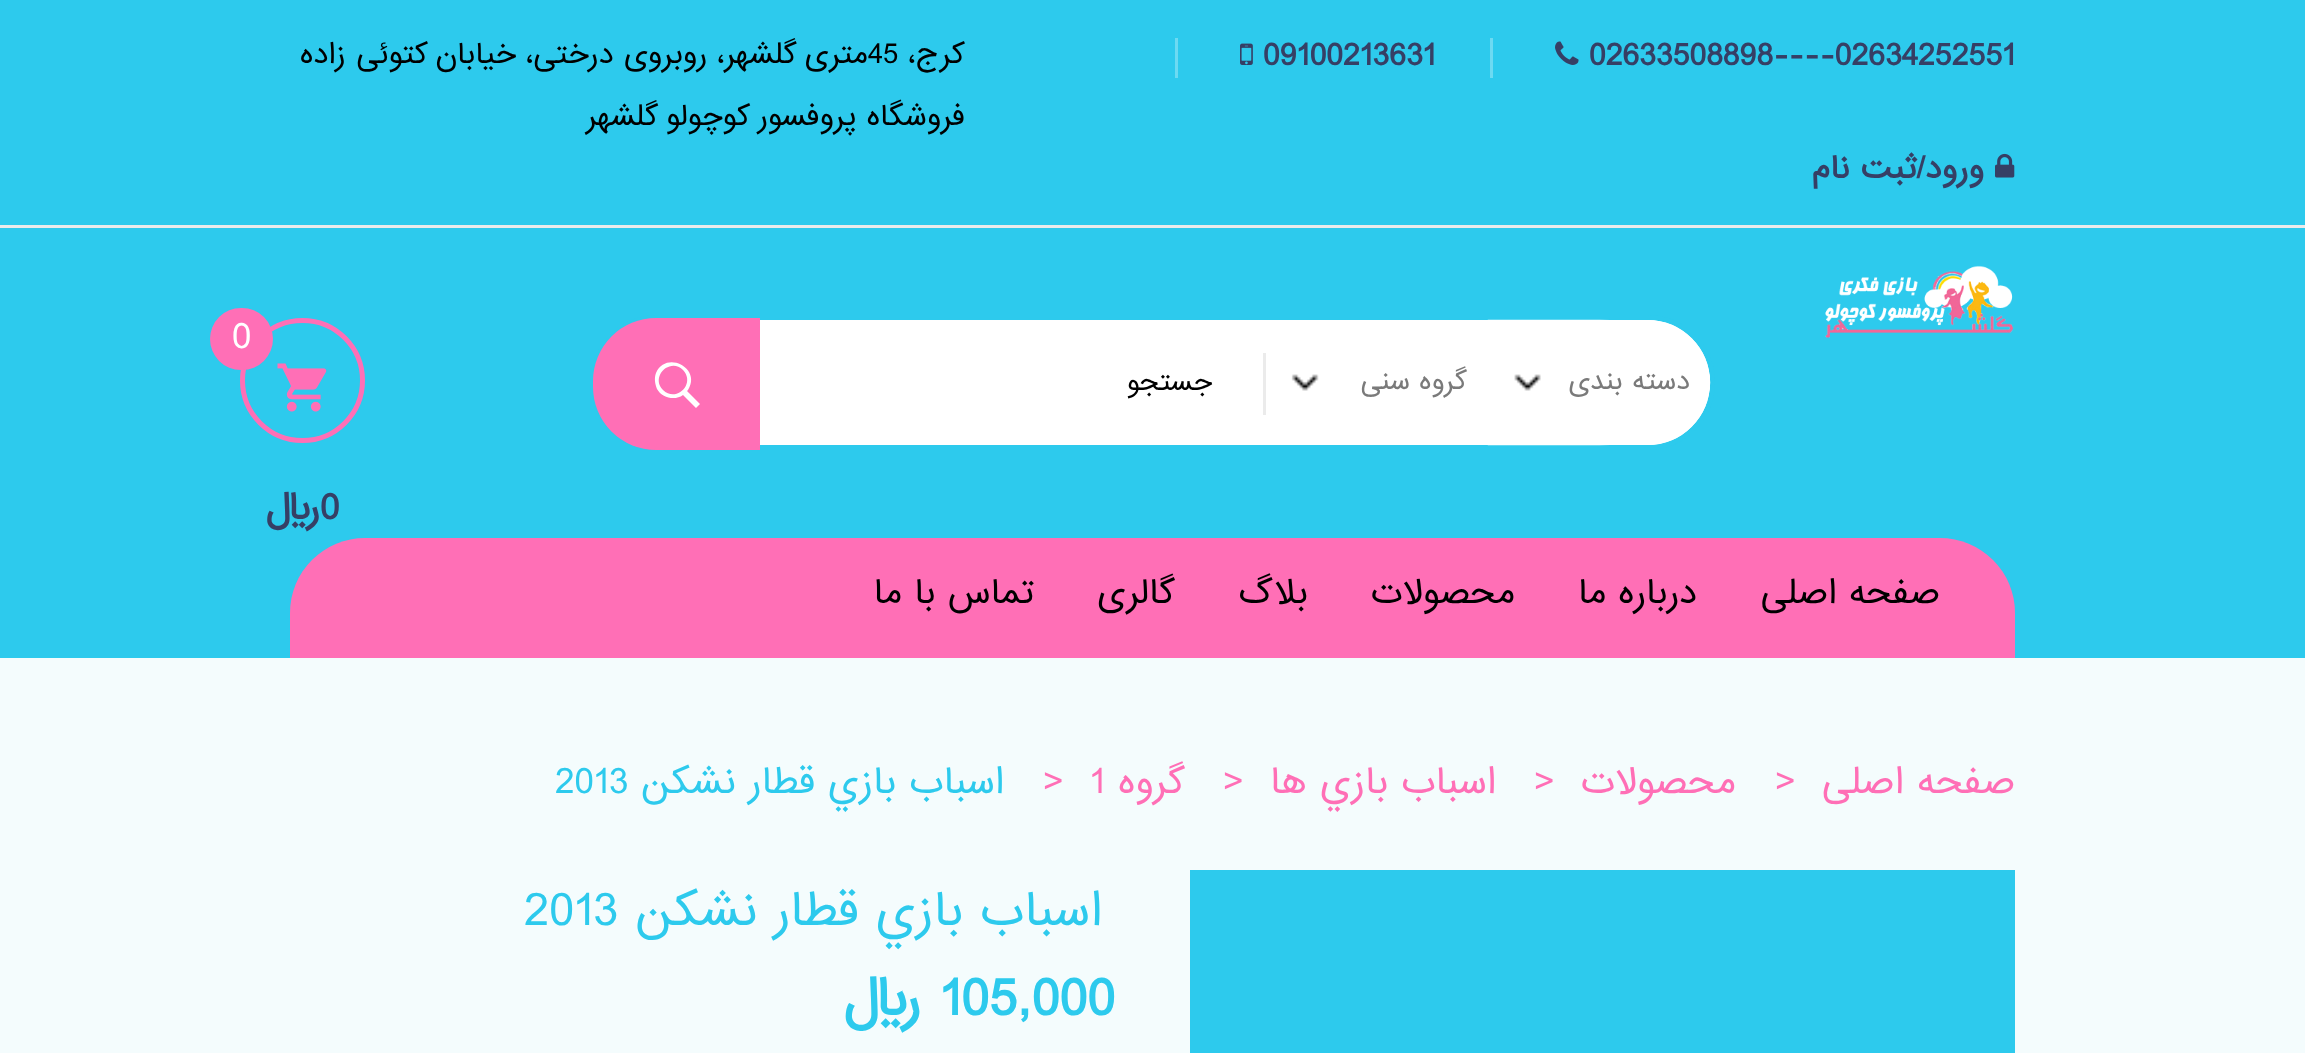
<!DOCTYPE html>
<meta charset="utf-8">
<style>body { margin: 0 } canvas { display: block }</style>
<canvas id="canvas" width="2305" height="1053"></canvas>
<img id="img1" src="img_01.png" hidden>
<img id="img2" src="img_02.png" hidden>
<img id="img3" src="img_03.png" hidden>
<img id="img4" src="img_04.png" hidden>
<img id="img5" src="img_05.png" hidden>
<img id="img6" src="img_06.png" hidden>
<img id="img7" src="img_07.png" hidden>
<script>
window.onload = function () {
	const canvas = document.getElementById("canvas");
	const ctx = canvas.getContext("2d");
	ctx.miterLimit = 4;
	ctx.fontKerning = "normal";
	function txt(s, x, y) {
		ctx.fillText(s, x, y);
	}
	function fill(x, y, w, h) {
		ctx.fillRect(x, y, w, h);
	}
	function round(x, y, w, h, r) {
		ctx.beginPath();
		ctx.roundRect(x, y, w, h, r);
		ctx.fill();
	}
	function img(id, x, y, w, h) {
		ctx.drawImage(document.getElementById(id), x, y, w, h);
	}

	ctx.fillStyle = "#F4FCFD";
	fill(0, 0, 2305, 1053);
	ctx.fillStyle = "#2DCAED";
	fill(0, 0, 2305, 658);
	ctx.fillStyle = "#EBEBEB";
	fill(0, 225, 2305, 3);
	img("img1", 1555, 41, 24, 24);
	ctx.fillStyle = "#6CDAF2";
	fill(1490, 38, 3, 40);
	img("img2", 1240, 43, 13, 22);
	fill(1175, 38, 3, 40);
	img("img3", 1995, 153, 20, 25);
	img("img4", 1825, 265, 189, 73);
	ctx.fillStyle = "#FFFFFF";
	ctx.beginPath();
	ctx.roundRect(592.5, 317.5, 1120, 130, 65);
	ctx.fill();
	ctx.strokeStyle = "#2DCAED";
	ctx.lineWidth = 5;
	ctx.stroke();
	ctx.beginPath();
	ctx.roundRect(1488, 320, 222, 125, [0, 62.5, 62.5, 0]);
	ctx.fill();
	ctx.beginPath();
	ctx.moveTo(1488, 320);
	ctx.lineTo(1599, 320);
	ctx.bezierCurveTo(1660, 320, 1710, 348, 1710, 382);
	ctx.bezierCurveTo(1710, 417, 1660, 445, 1599, 445);
	ctx.lineTo(1488, 445);
	ctx.closePath();
	ctx.fill();
	img("img5", 1514, 374, 27, 17);
	ctx.beginPath();
	ctx.moveTo(1489, 321);
	ctx.lineTo(1599, 321);
	ctx.bezierCurveTo(1659.5, 321, 1709, 348.5, 1709, 382.5);
	ctx.bezierCurveTo(1709, 416.5, 1659.5, 444, 1599, 444);
	ctx.lineTo(1489, 444);
	ctx.closePath();
	ctx.strokeStyle = "#FFFFFF";
	ctx.lineWidth = 2.5;
	ctx.stroke();
	img("img6", 1291, 374, 28, 17);
	ctx.beginPath();
	ctx.roundRect(595, 320, 670, 125, [62.5, 0, 0, 62.5]);
	ctx.fill();
	ctx.beginPath();
	ctx.roundRect(595, 353, 670, 62, [31, 0, 0, 31]);
	ctx.fill();
	ctx.fillStyle = "#EBEBEB";
	fill(1263, 353, 3, 62);
	ctx.fillStyle = "#FF6FB6";
	ctx.beginPath();
	ctx.roundRect(593, 318, 167, 132, [63, 0, 0, 63]);
	ctx.fill();
	ctx.fillStyle = "#FFFFFF";
	ctx.beginPath();
	ctx.moveTo(688, 390);
	ctx.lineTo(687, 391);
	ctx.lineTo(700, 404);
	ctx.lineTo(696, 408);
	ctx.lineTo(683, 395);
	ctx.bezierCurveTo(675, 401, 662, 398, 657, 389);
	ctx.bezierCurveTo(655, 384, 654, 378, 656, 373);
	ctx.bezierCurveTo(666, 350, 702, 368, 688, 390);
	ctx.closePath();
	ctx.moveTo(683, 370);
	ctx.bezierCurveTo(670, 357, 650, 377, 663, 390);
	ctx.bezierCurveTo(676, 403, 696, 384, 683, 370);
	ctx.closePath();
	ctx.fill();
	ctx.beginPath();
	ctx.arc(302.5, 380.5, 60, 0, Math.PI * 2);
	ctx.strokeStyle = "#FF6FB6";
	ctx.lineWidth = 5;
	ctx.stroke();
	ctx.fillStyle = "#FF6FB6";
	round(210, 308, 63, 62, 31);
	img("img7", 277, 363, 50, 49);
	ctx.beginPath();
	ctx.roundRect(290, 538, 1725, 120, [75, 75, 0, 0]);
	ctx.fill();
	ctx.fillStyle = "#2DCAED";
	fill(1190, 870, 825, 183);
	ctx.font = "bold 30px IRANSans";
	ctx.fillStyle = "#363F65";
	txt("02633508898----02634252551", 1589, 65);
	txt("09100213631", 1263, 65);
	ctx.direction = "rtl";
	txt("ورود/ثبت نام", 1984, 178);
	ctx.font = "27.5px IRANSans";
	ctx.fillStyle = "#000000";
	txt("کرج،", 965, 63);
	ctx.direction = "ltr";
	txt("45", 868, 63);
	ctx.direction = "rtl";
	txt("متری گلشهر، روبروی درختی، خیابان کتوئی زاده", 868, 63);
	txt("فروشگاه پروفسور کوچولو گلشهر", 965, 125);
	ctx.font = "25px IRANSans";
	ctx.fillStyle = "#7A7A7A";
	txt("دسته بندی", 1690, 389);
	txt("گروه سنی", 1467, 389);
	ctx.fillStyle = "#000000";
	txt("جستجو", 1212, 390);
	ctx.direction = "ltr";
	ctx.font = "35px IRANSans";
	ctx.fillStyle = "#FFFFFF";
	txt("0", 232, 348);
	ctx.font = "bold 35px IRANSans";
	ctx.fillStyle = "#363F65";
	txt("0", 320, 519);
	ctx.direction = "rtl";
	txt("ریال", 320, 519);
	ctx.font = "32.5px IRANSans";
	ctx.fillStyle = "#000000";
	txt("صفحه اصلی", 1940, 603);
	txt("درباره ما", 1697, 603);
	txt("محصولات", 1515, 603);
	txt("بلاگ", 1308, 603);
	txt("گالری", 1175, 603);
	txt("تماس با ما", 1034, 603);
	ctx.font = "35px IRANSans";
	ctx.fillStyle = "#FF6FB6";
	txt("صفحه اصلی", 2015, 793);
	ctx.direction = "ltr";
	txt(">", 1775, 793);
	ctx.direction = "rtl";
	txt("محصولات", 1736, 793);
	ctx.direction = "ltr";
	txt(">", 1534, 793);
	ctx.direction = "rtl";
	txt("اسباب بازي ها", 1496, 793);
	ctx.direction = "ltr";
	txt(">", 1223, 793);
	ctx.direction = "rtl";
	txt("گروه", 1185, 793);
	ctx.direction = "ltr";
	txt("1", 1090, 793);
	txt(">", 1043, 793);
	ctx.direction = "rtl";
	ctx.fillStyle = "#2DCAED";
	txt("اسباب بازي قطار نشکن", 1004, 793);
	ctx.direction = "ltr";
	txt("2013", 555, 793);
	ctx.direction = "rtl";
	ctx.font = "45px IRANSans";
	txt("اسباب بازي قطار نشکن", 1102, 925);
	ctx.direction = "ltr";
	txt("2013", 524, 925);
	ctx.font = "bold 50px IRANSans";
	txt("105,000", 940, 1015);
	ctx.direction = "rtl";
	txt("ریال", 921, 1015);
};
</script>
